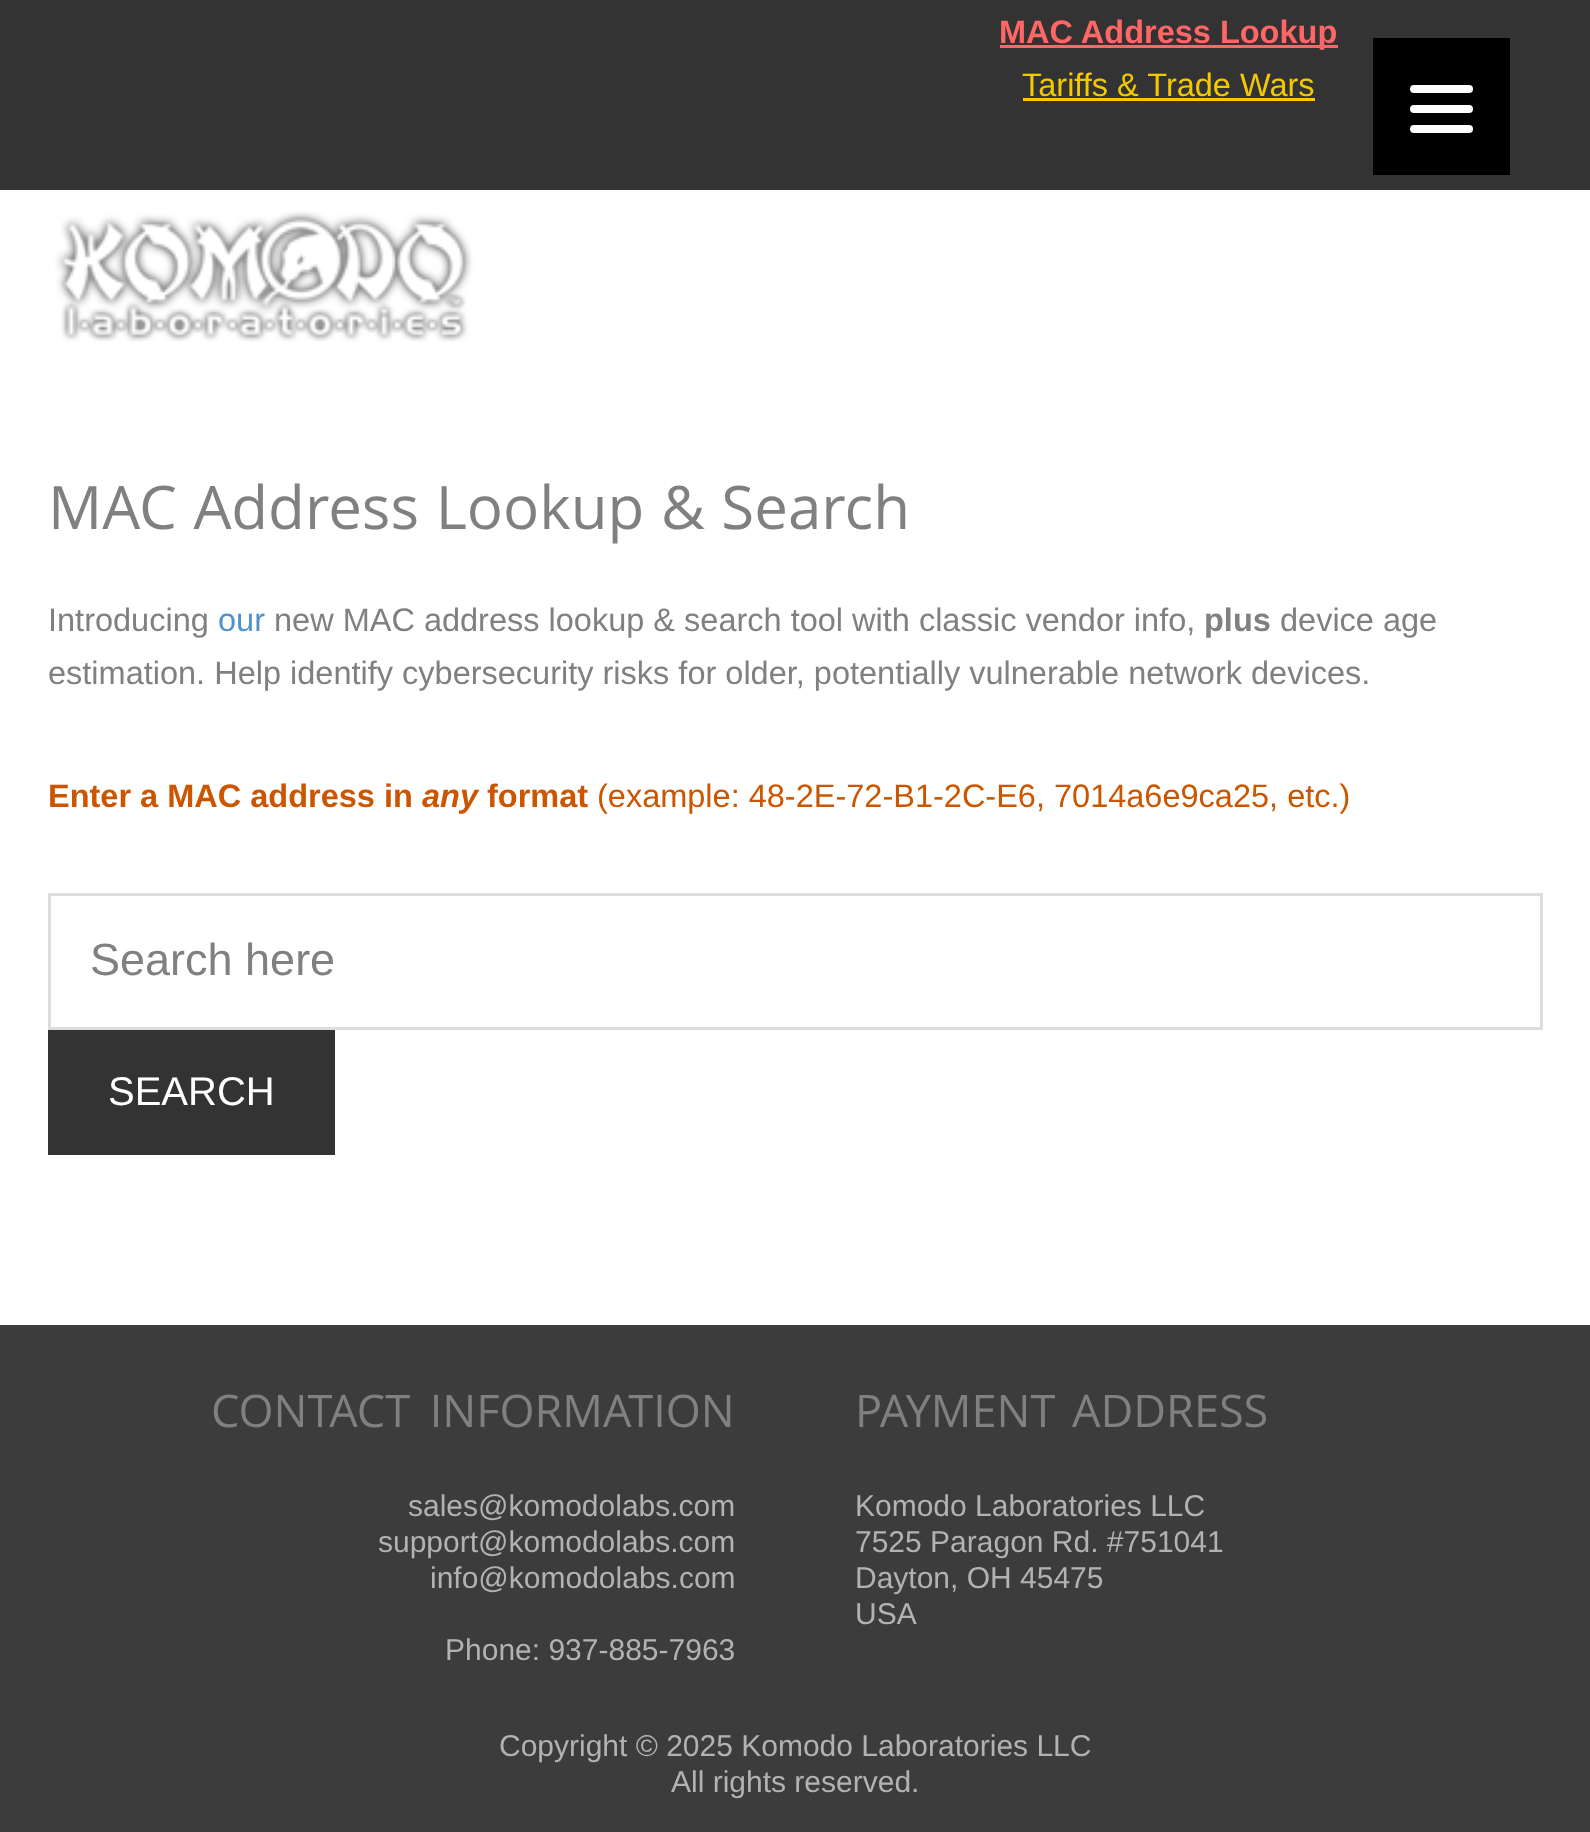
<!DOCTYPE html>
<meta charset="utf-8">
<style>body { margin: 0 } canvas { display: block }</style>
<canvas id="canvas" width="1590" height="1832"></canvas>
<img id="img1" src="img_01.png" hidden>
<script>
window.onload = function () {
	const canvas = document.getElementById("canvas");
	const ctx = canvas.getContext("2d");
	ctx.miterLimit = 4;
	ctx.fontKerning = "normal";
	function txt(s, x, y) {
		ctx.fillText(s, x, y);
	}
	function fill(x, y, w, h) {
		ctx.fillRect(x, y, w, h);
	}
	function round(x, y, w, h, r) {
		ctx.beginPath();
		ctx.roundRect(x, y, w, h, r);
		ctx.fill();
	}
	function img(id, x, y, w, h) {
		ctx.drawImage(document.getElementById(id), x, y, w, h);
	}

	ctx.fillStyle = "#FFFFFF";
	fill(0, 0, 1590, 1832);
	ctx.fillStyle = "#333333";
	fill(0, 0, 1590, 190);
	ctx.fillStyle = "#FF6666";
	fill(1000, 45, 338, 3);
	ctx.fillStyle = "#F4C900";
	fill(1023, 98, 292, 3);
	img("img1", 55, 210, 418, 132);
	ctx.strokeStyle = "#DDDDDD";
	ctx.lineWidth = 3;
	ctx.strokeRect(49.5, 894.5, 1492, 134);
	ctx.fillStyle = "#333333";
	fill(48, 1030, 287, 125);
	ctx.fillStyle = "#3D3C3C";
	fill(0, 1325, 1590, 507);
	ctx.fillStyle = "#000000";
	fill(1373, 38, 137, 137);
	ctx.fillStyle = "#FFFFFF";
	round(1410, 105, 63, 8, 4);
	round(1410, 85, 63, 8, 4);
	round(1410, 125, 63, 8, 4);
	ctx.font = "bold 32.5px Liberation Sans";
	ctx.fillStyle = "#FF6666";
	txt("MAC Address Lookup", 999, 43);
	ctx.font = "32.5px Liberation Sans";
	ctx.fillStyle = "#F4C900";
	txt("Tariffs & Trade Wars", 1022, 96);
	ctx.wordSpacing = "1px";
	ctx.font = "60px Open Sans";
	ctx.fillStyle = "#808080";
	txt("MAC Address Lookup & Search", 48, 529);
	ctx.wordSpacing = "0px";
	ctx.font = "32.5px Liberation Sans";
	txt("Introducing", 48, 631);
	ctx.fillStyle = "#5092CB";
	txt("our", 218, 631);
	ctx.fillStyle = "#808080";
	txt("new MAC address lookup & search tool with classic vendor info,", 274, 631);
	ctx.font = "bold 32.5px Liberation Sans";
	txt("plus", 1204, 631);
	ctx.font = "32.5px Liberation Sans";
	txt("device age", 1280, 631);
	txt("estimation. Help identify cybersecurity risks for older, potentially vulnerable network devices.", 48, 684);
	ctx.font = "bold 32.5px Liberation Sans";
	ctx.fillStyle = "#CC5500";
	txt("Enter a MAC address in", 48, 807);
	ctx.font = "italic bold 32.5px Liberation Sans";
	txt("any", 422, 807);
	ctx.font = "bold 32.5px Liberation Sans";
	txt("format", 487, 807);
	ctx.font = "32.5px Liberation Sans";
	txt("(example: 48-2E-72-B1-2C-E6, 7014a6e9ca25, etc.)", 597, 807);
	ctx.font = "45px Liberation Sans";
	ctx.fillStyle = "#808080";
	txt("Search here", 90, 975);
	ctx.font = "40px Liberation Sans";
	ctx.fillStyle = "#FFFFFF";
	txt("SEARCH", 108, 1105);
	ctx.wordSpacing = "8px";
	ctx.font = "45px Open Sans";
	ctx.fillStyle = "#808080";
	txt("CONTACT INFORMATION", 211, 1427);
	ctx.wordSpacing = "0px";
	ctx.font = "30px Liberation Sans";
	ctx.fillStyle = "#B2B2B2";
	txt("sales@komodolabs.com", 408, 1516);
	txt("support@komodolabs.com", 378, 1552);
	txt("info@komodolabs.com", 430, 1588);
	txt("Phone: 937-885-7963", 445, 1660);
	ctx.wordSpacing = "5px";
	ctx.font = "45px Open Sans";
	ctx.fillStyle = "#808080";
	txt("PAYMENT ADDRESS", 855, 1427);
	ctx.wordSpacing = "0px";
	ctx.font = "30px Liberation Sans";
	ctx.fillStyle = "#B2B2B2";
	txt("Komodo Laboratories LLC", 855, 1516);
	txt("7525 Paragon Rd. #751041", 855, 1552);
	txt("Dayton, OH 45475", 855, 1588);
	txt("USA", 855, 1624);
	txt("Copyright © 2025 Komodo Laboratories LLC", 499, 1756);
	txt("All rights reserved.", 671, 1792);
};
</script>
